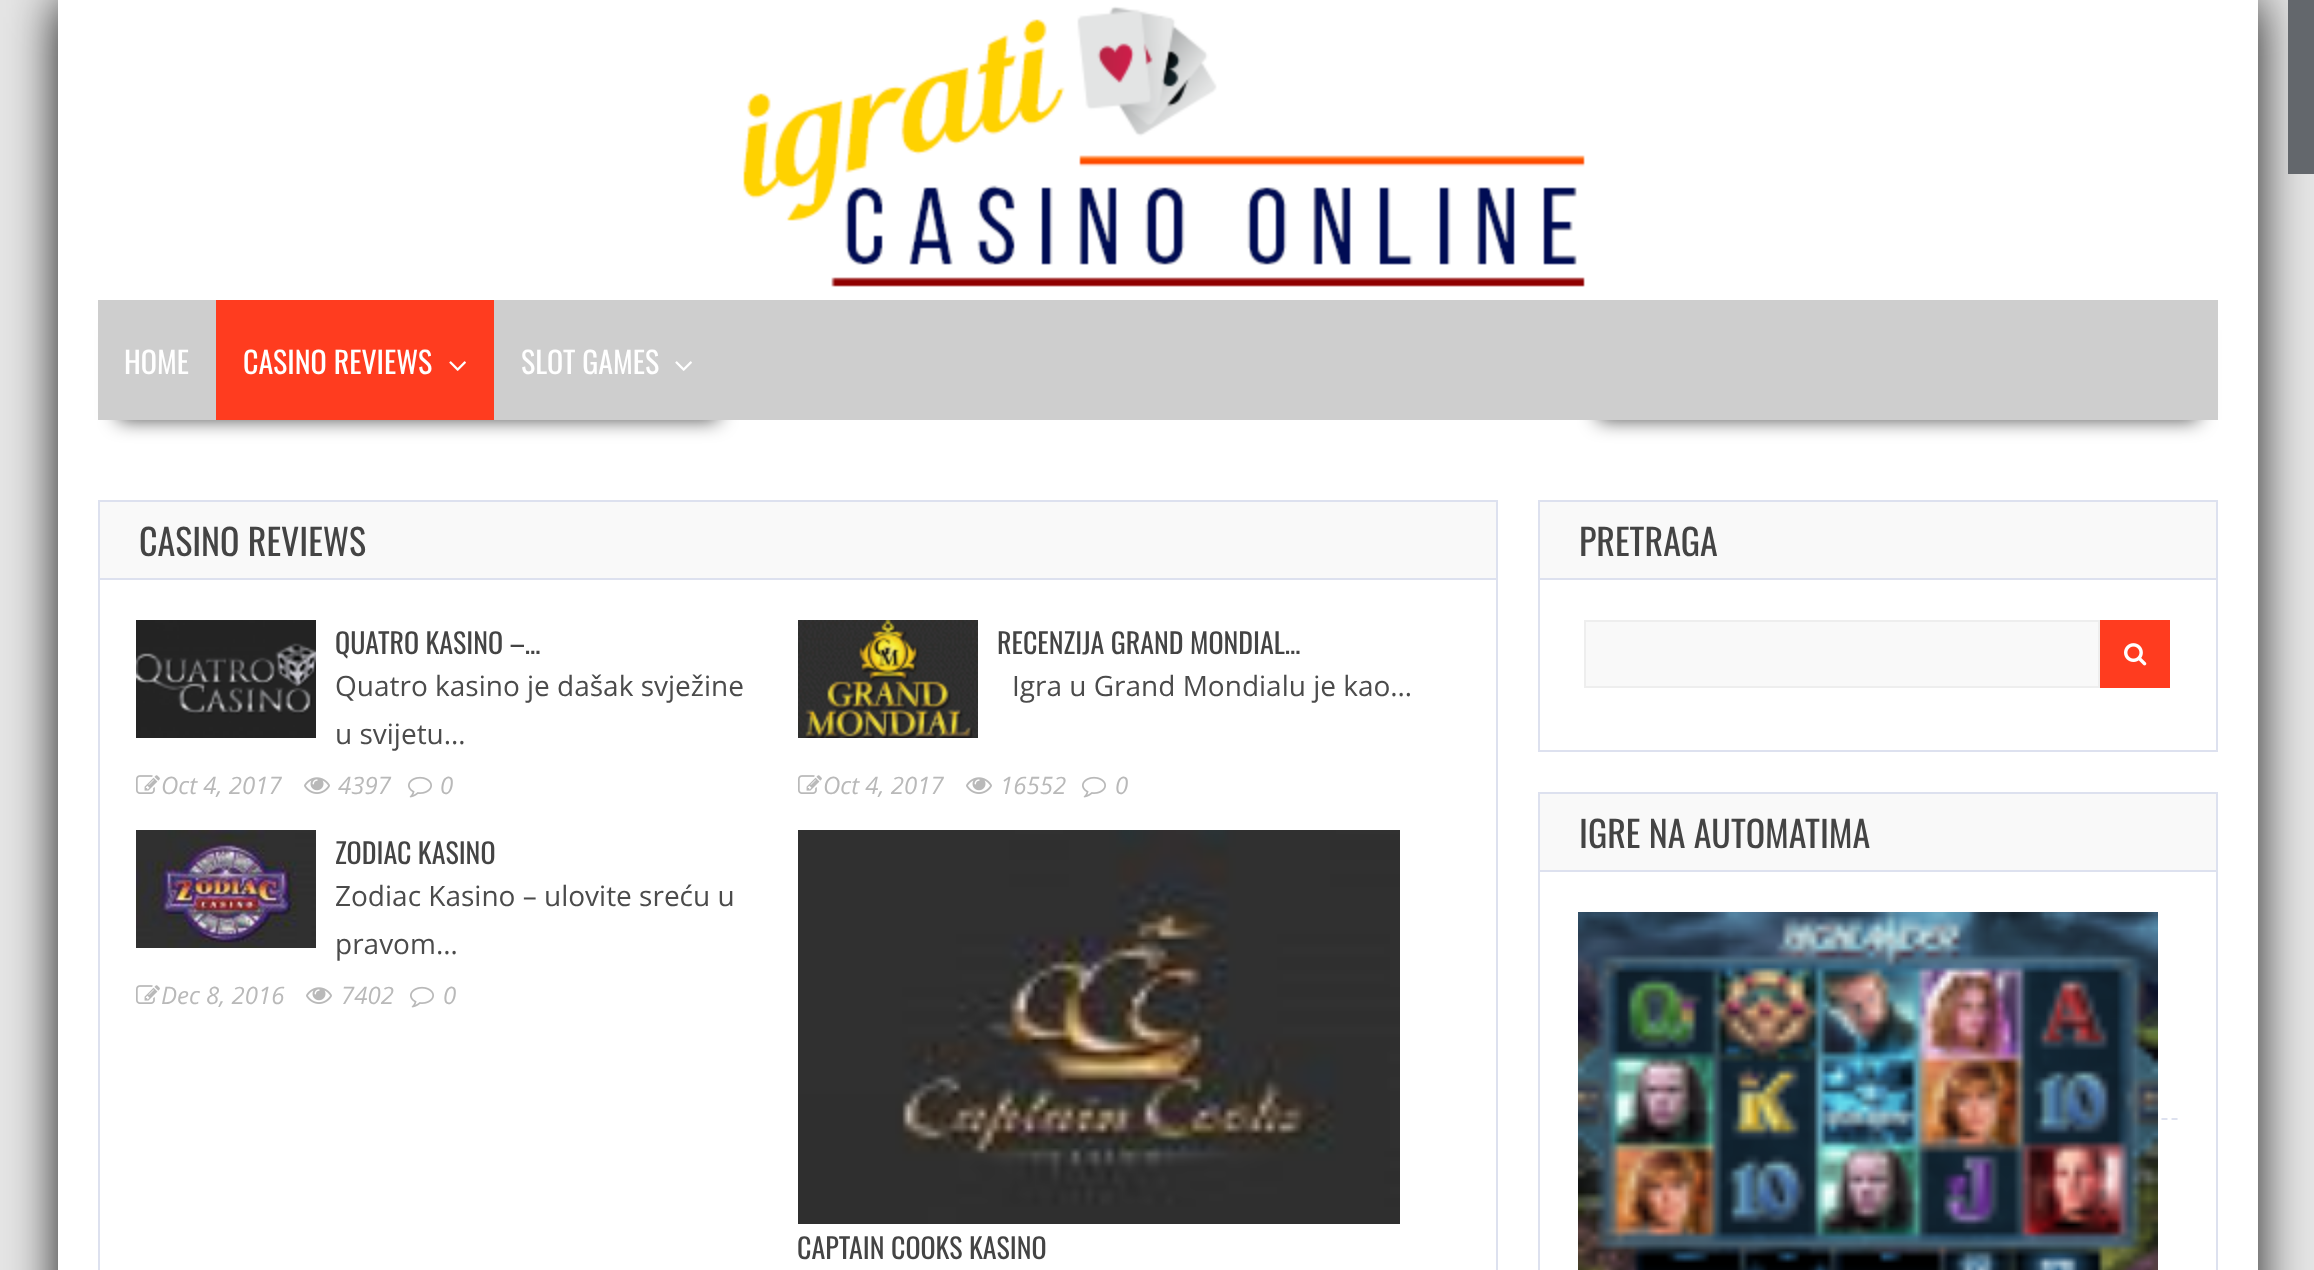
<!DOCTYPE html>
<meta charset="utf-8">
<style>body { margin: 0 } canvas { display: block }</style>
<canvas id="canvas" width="2314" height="1270"></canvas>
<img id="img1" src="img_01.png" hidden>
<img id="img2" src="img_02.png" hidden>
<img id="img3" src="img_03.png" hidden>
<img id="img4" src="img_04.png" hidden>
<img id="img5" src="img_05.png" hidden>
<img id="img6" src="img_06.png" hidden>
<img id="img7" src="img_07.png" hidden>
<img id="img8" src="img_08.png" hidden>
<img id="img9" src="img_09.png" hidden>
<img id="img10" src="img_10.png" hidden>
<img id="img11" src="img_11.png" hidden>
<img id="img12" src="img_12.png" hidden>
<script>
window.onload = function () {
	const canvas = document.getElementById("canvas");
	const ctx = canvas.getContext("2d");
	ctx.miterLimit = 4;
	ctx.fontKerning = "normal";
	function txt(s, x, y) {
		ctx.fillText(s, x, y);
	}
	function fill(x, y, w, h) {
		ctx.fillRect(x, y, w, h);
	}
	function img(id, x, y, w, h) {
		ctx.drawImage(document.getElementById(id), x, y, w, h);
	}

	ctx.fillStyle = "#E5E5E5";
	fill(0, 0, 2314, 1270);
	ctx.fillStyle = "rgba(0, 0, 0, 0.9)";
	ctx.filter = "blur(25px)";
	ctx.beginPath();
	ctx.rect(58, 0, 2200, 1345);
	ctx.fill();
	ctx.filter = "none";
	ctx.fillStyle = "#63676C";
	fill(2288, 0, 26, 174);
	ctx.fillStyle = "#FFFFFF";
	fill(58, 0, 2200, 1270);
	img("img1", 743, 6, 842, 281);
	ctx.fillStyle = "rgba(0, 0, 0, 0.7)";
	ctx.filter = "blur(10px)";
	ctx.beginPath();
	ctx.rect(118, 330, 600, 90);
	ctx.fill();
	ctx.filter = "none";
	ctx.filter = "blur(10px)";
	ctx.beginPath();
	ctx.rect(1598, 330, 600, 90);
	ctx.fill();
	ctx.filter = "none";
	ctx.fillStyle = "#CECECE";
	fill(98, 300, 2120, 120);
	ctx.fillStyle = "#FF3C1F";
	fill(216, 300, 278, 120);
	img("img2", 449, 361, 17, 10);
	img("img3", 675, 361, 17, 10);
	ctx.strokeStyle = "#DDE1EF";
	ctx.lineWidth = 2;
	ctx.strokeRect(99, 501, 1398, 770);
	ctx.fillStyle = "#F9F9F9";
	fill(100, 502, 1396, 76);
	ctx.fillStyle = "#DDE1EF";
	fill(100, 578, 1396, 2);
	img("img4", 136, 620, 180, 118);
	img("img5", 136, 775, 24, 19);
	img("img6", 304, 777, 26, 17);
	img("img7", 408, 776, 24, 22);
	img("img8", 798, 620, 180, 118);
	img("img5", 798, 775, 24, 19);
	img("img6", 966, 777, 26, 17);
	img("img7", 1082, 776, 24, 22);
	img("img9", 136, 830, 180, 118);
	img("img5", 136, 985, 24, 19);
	img("img6", 306, 987, 26, 17);
	img("img7", 410, 986, 24, 22);
	img("img10", 798, 830, 602, 394);
	ctx.strokeRect(1539, 501, 678, 250);
	ctx.fillStyle = "#F9F9F9";
	fill(1540, 502, 676, 76);
	ctx.fillStyle = "#DDE1EF";
	fill(1540, 578, 676, 2);
	ctx.fillStyle = "#F9F9F9";
	ctx.beginPath();
	ctx.rect(1585, 621, 514, 66);
	ctx.fill();
	ctx.strokeStyle = "#EEEEEE";
	ctx.stroke();
	ctx.fillStyle = "#FF3C1F";
	fill(2100, 620, 70, 68);
	img("img11", 2124, 643, 23, 23);
	ctx.strokeStyle = "#DDE1EF";
	ctx.strokeRect(1539, 793, 678, 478);
	ctx.fillStyle = "#F9F9F9";
	fill(1540, 794, 676, 76);
	ctx.fillStyle = "#DDE1EF";
	fill(1540, 870, 676, 2);
	ctx.beginPath();
	ctx.moveTo(1578, 1119);
	ctx.lineTo(2178, 1119);
	ctx.setLineDash([6, 4.06]);
	ctx.stroke();
	img("img12", 1578, 912, 580, 358);
	ctx.font = "30px Oswald";
	ctx.fillStyle = "#FFFFFF";
	txt("HOME", 124, 374);
	txt("CASINO REVIEWS", 243, 374);
	txt("SLOT GAMES", 521, 374);
	ctx.font = "36px Oswald";
	ctx.fillStyle = "#444444";
	txt("CASINO REVIEWS", 139, 556);
	ctx.font = "28px Oswald";
	txt("QUATRO KASINO –…", 335, 654);
	ctx.font = "28px Open Sans";
	ctx.fillStyle = "#4B4B4B";
	txt("Quatro kasino je dašak svježine", 335, 696);
	txt("u svijetu…", 335, 744);
	ctx.font = "italic 24px Open Sans";
	ctx.fillStyle = "#B9B9B9";
	txt("Oct 4, 2017", 161, 794);
	txt("4397", 338, 794);
	txt("0", 440, 794);
	ctx.font = "28px Oswald";
	ctx.fillStyle = "#444444";
	txt("RECENZIJA GRAND MONDIAL…", 997, 654);
	ctx.font = "28px Open Sans";
	ctx.fillStyle = "#4B4B4B";
	txt("Igra u Grand Mondialu je kao…", 1012, 696);
	ctx.font = "italic 24px Open Sans";
	ctx.fillStyle = "#B9B9B9";
	txt("Oct 4, 2017", 823, 794);
	txt("16552", 1000, 794);
	txt("0", 1115, 794);
	ctx.font = "28px Oswald";
	ctx.fillStyle = "#444444";
	txt("ZODIAC KASINO", 335, 864);
	ctx.font = "28px Open Sans";
	ctx.fillStyle = "#4B4B4B";
	txt("Zodiac Kasino – ulovite sreću u", 335, 906);
	txt("pravom…", 335, 954);
	ctx.font = "italic 24px Open Sans";
	ctx.fillStyle = "#B9B9B9";
	txt("Dec 8, 2016", 161, 1004);
	txt("7402", 341, 1004);
	txt("0", 443, 1004);
	ctx.font = "28px Oswald";
	ctx.fillStyle = "#444444";
	txt("CAPTAIN COOKS KASINO", 797, 1259);
	ctx.font = "36px Oswald";
	txt("PRETRAGA", 1579, 556);
	txt("IGRE NA AUTOMATIMA", 1579, 848);
};
</script>
